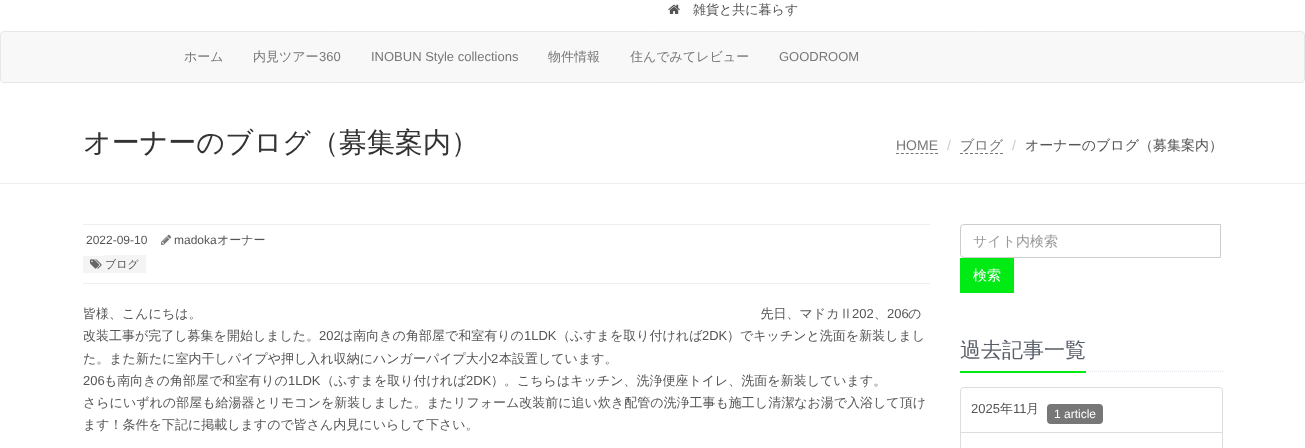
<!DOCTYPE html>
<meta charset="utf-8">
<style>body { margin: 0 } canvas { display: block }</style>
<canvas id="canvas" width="1305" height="448"></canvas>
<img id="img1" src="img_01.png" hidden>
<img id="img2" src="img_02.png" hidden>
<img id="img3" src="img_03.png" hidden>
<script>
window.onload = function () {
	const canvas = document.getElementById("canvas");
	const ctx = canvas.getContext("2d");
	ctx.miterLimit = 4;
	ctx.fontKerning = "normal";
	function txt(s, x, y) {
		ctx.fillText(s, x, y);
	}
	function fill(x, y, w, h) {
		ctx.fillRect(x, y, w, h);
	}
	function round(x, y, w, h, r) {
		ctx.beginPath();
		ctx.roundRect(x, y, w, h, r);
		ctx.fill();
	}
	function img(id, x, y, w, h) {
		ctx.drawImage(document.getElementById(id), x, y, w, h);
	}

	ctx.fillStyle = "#FFFFFF";
	fill(0, 0, 1305, 448);
	img("img1", 668, 4, 12, 10);
	ctx.fillStyle = "#F8F8F8";
	ctx.beginPath();
	ctx.roundRect(0.5, 31.5, 1304, 51, 3.5);
	ctx.fill();
	ctx.strokeStyle = "#E7E7E7";
	ctx.stroke();
	ctx.fillStyle = "#EEEEEE";
	fill(0, 183, 1305, 1);
	ctx.beginPath();
	ctx.moveTo(896, 153.5);
	ctx.lineTo(938, 153.5);
	ctx.strokeStyle = "#777777";
	ctx.setLineDash([3, 1.88]);
	ctx.stroke();
	ctx.beginPath();
	ctx.moveTo(960, 153.5);
	ctx.lineTo(1003, 153.5);
	ctx.setLineDash([3, 2]);
	ctx.stroke();
	fill(83, 224, 847, 1);
	fill(83, 283, 847, 1);
	img("img2", 161, 234, 11, 11);
	ctx.fillStyle = "#F4F4F4";
	fill(83, 256, 22, 17);
	img("img3", 90, 259, 12, 10);
	fill(105, 255, 41, 18);
	ctx.beginPath();
	ctx.roundRect(960.5, 224.5, 260, 33, [3.5, 0, 0, 3.5]);
	ctx.strokeStyle = "#CCCCCC";
	ctx.setLineDash([]);
	ctx.stroke();
	ctx.fillStyle = "#00EA13";
	fill(960, 258, 54, 35);
	ctx.beginPath();
	ctx.moveTo(960, 371.5);
	ctx.lineTo(1223, 371.5);
	ctx.strokeStyle = "#E4E9F0";
	ctx.setLineDash([1, 1]);
	ctx.stroke();
	fill(960, 371, 126, 2);
	ctx.beginPath();
	ctx.roundRect(960.5, 387.5, 262, 45, [3.5, 3.5, 0, 0]);
	ctx.strokeStyle = "#DDDDDD";
	ctx.setLineDash([]);
	ctx.stroke();
	ctx.fillStyle = "#777777";
	round(1047, 404, 56, 20, 4);
	ctx.strokeRect(960.5, 432.5, 262, 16);
	ctx.font = "500 13px WenQuanYi Zen Hei";
	ctx.fillStyle = "#555555";
	txt("雑貨と共に暮らす", 693, 14);
	ctx.fillStyle = "#777777";
	txt("ホーム", 184, 61);
	txt("内見ツアー", 253, 61);
	ctx.font = "13px Liberation Sans";
	txt("360", 319, 61);
	txt("INOBUN Style collections", 371, 61);
	ctx.font = "500 13px WenQuanYi Zen Hei";
	txt("物件情報", 548, 61);
	txt("住んでみてレビュー", 630, 61);
	ctx.font = "13px Liberation Sans";
	txt("GOODROOM", 779, 61);
	ctx.font = "500 28px WenQuanYi Zen Hei";
	ctx.fillStyle = "#333333";
	txt("オーナーのブログ（募集案内）", 83, 152);
	ctx.font = "14px Liberation Sans";
	ctx.fillStyle = "#777777";
	txt("HOME", 896, 150);
	ctx.fillStyle = "#CCCCCC";
	txt("/", 947, 150);
	ctx.font = "500 14px WenQuanYi Zen Hei";
	ctx.fillStyle = "#777777";
	txt("ブログ", 960, 150);
	ctx.font = "14px Liberation Sans";
	ctx.fillStyle = "#CCCCCC";
	txt("/", 1012, 150);
	ctx.font = "500 14px WenQuanYi Zen Hei";
	ctx.fillStyle = "#555555";
	txt("オーナーのブログ（募集案内）", 1025, 150);
	ctx.font = "12px Liberation Sans";
	txt("2022-09-10", 86, 244);
	txt("madoka", 174, 244);
	ctx.font = "500 12px WenQuanYi Zen Hei";
	txt("オーナー", 217, 244);
	ctx.font = "500 11px WenQuanYi Zen Hei";
	txt("ブログ", 105, 268);
	ctx.font = "500 13px WenQuanYi Zen Hei";
	txt("皆様、こんにちは。　　　　　　　　　　　　　　　　　　　　　　　　　　　　　　　　　　　　　　　　　　　先日、マドカⅡ", 83, 318);
	ctx.font = "13px Liberation Sans";
	txt("202", 852, 318);
	ctx.font = "500 13px WenQuanYi Zen Hei";
	txt("、", 874, 318);
	ctx.font = "13px Liberation Sans";
	txt("206", 887, 318);
	ctx.font = "500 13px WenQuanYi Zen Hei";
	txt("の", 908, 318);
	txt("改装工事が完了し募集を開始しました。", 83, 340);
	ctx.font = "13px Liberation Sans";
	txt("202", 319, 340);
	ctx.font = "500 13px WenQuanYi Zen Hei";
	txt("は南向きの角部屋で和室有りの", 340, 340);
	ctx.font = "13px Liberation Sans";
	txt("1LDK", 524, 340);
	ctx.font = "500 13px WenQuanYi Zen Hei";
	txt("（ふすまを取り付ければ", 557, 340);
	ctx.font = "13px Liberation Sans";
	txt("2DK", 702, 340);
	ctx.font = "500 13px WenQuanYi Zen Hei";
	txt("）でキッチンと洗面を新装しまし", 727, 340);
	txt("た。また新たに室内干しパイプや押し入れ収納にハンガーパイプ大小", 83, 363);
	ctx.font = "13px Liberation Sans";
	txt("2", 491, 363);
	ctx.font = "500 13px WenQuanYi Zen Hei";
	txt("本設置しています。", 499, 363);
	ctx.font = "13px Liberation Sans";
	txt("206", 83, 385);
	ctx.font = "500 13px WenQuanYi Zen Hei";
	txt("も南向きの角部屋で和室有りの", 104, 385);
	ctx.font = "13px Liberation Sans";
	txt("1LDK", 288, 385);
	ctx.font = "500 13px WenQuanYi Zen Hei";
	txt("（ふすまを取り付ければ", 321, 385);
	ctx.font = "13px Liberation Sans";
	txt("2DK", 466, 385);
	ctx.font = "500 13px WenQuanYi Zen Hei";
	txt("）。こちらはキッチン、洗浄便座トイレ、洗面を新装しています。", 491, 385);
	txt("さらにいずれの部屋も給湯器とリモコンを新装しました。またリフォーム改装前に追い炊き配管の洗浄工事も施工し清潔なお湯で入浴して頂け", 83, 407);
	txt("ます！条件を下記に掲載しますので皆さん内見にいらして下さい。", 83, 429);
	ctx.font = "500 14px WenQuanYi Zen Hei";
	ctx.fillStyle = "#999999";
	txt("サイト内検索", 973, 246);
	ctx.fillStyle = "#FFFFFF";
	txt("検索", 973, 280);
	ctx.font = "500 21px WenQuanYi Zen Hei";
	ctx.fillStyle = "#585F69";
	txt("過去記事一覧", 960, 357);
	ctx.font = "13px Liberation Sans";
	ctx.fillStyle = "#555555";
	txt("2025", 971, 413);
	ctx.font = "500 13px WenQuanYi Zen Hei";
	txt("年", 1000, 413);
	ctx.font = "13px Liberation Sans";
	txt("11", 1013, 413);
	ctx.font = "500 13px WenQuanYi Zen Hei";
	txt("月", 1026, 413);
	ctx.font = "12px Liberation Sans";
	ctx.fillStyle = "#FFFFFF";
	txt("1 article", 1054, 418);
};
</script>
